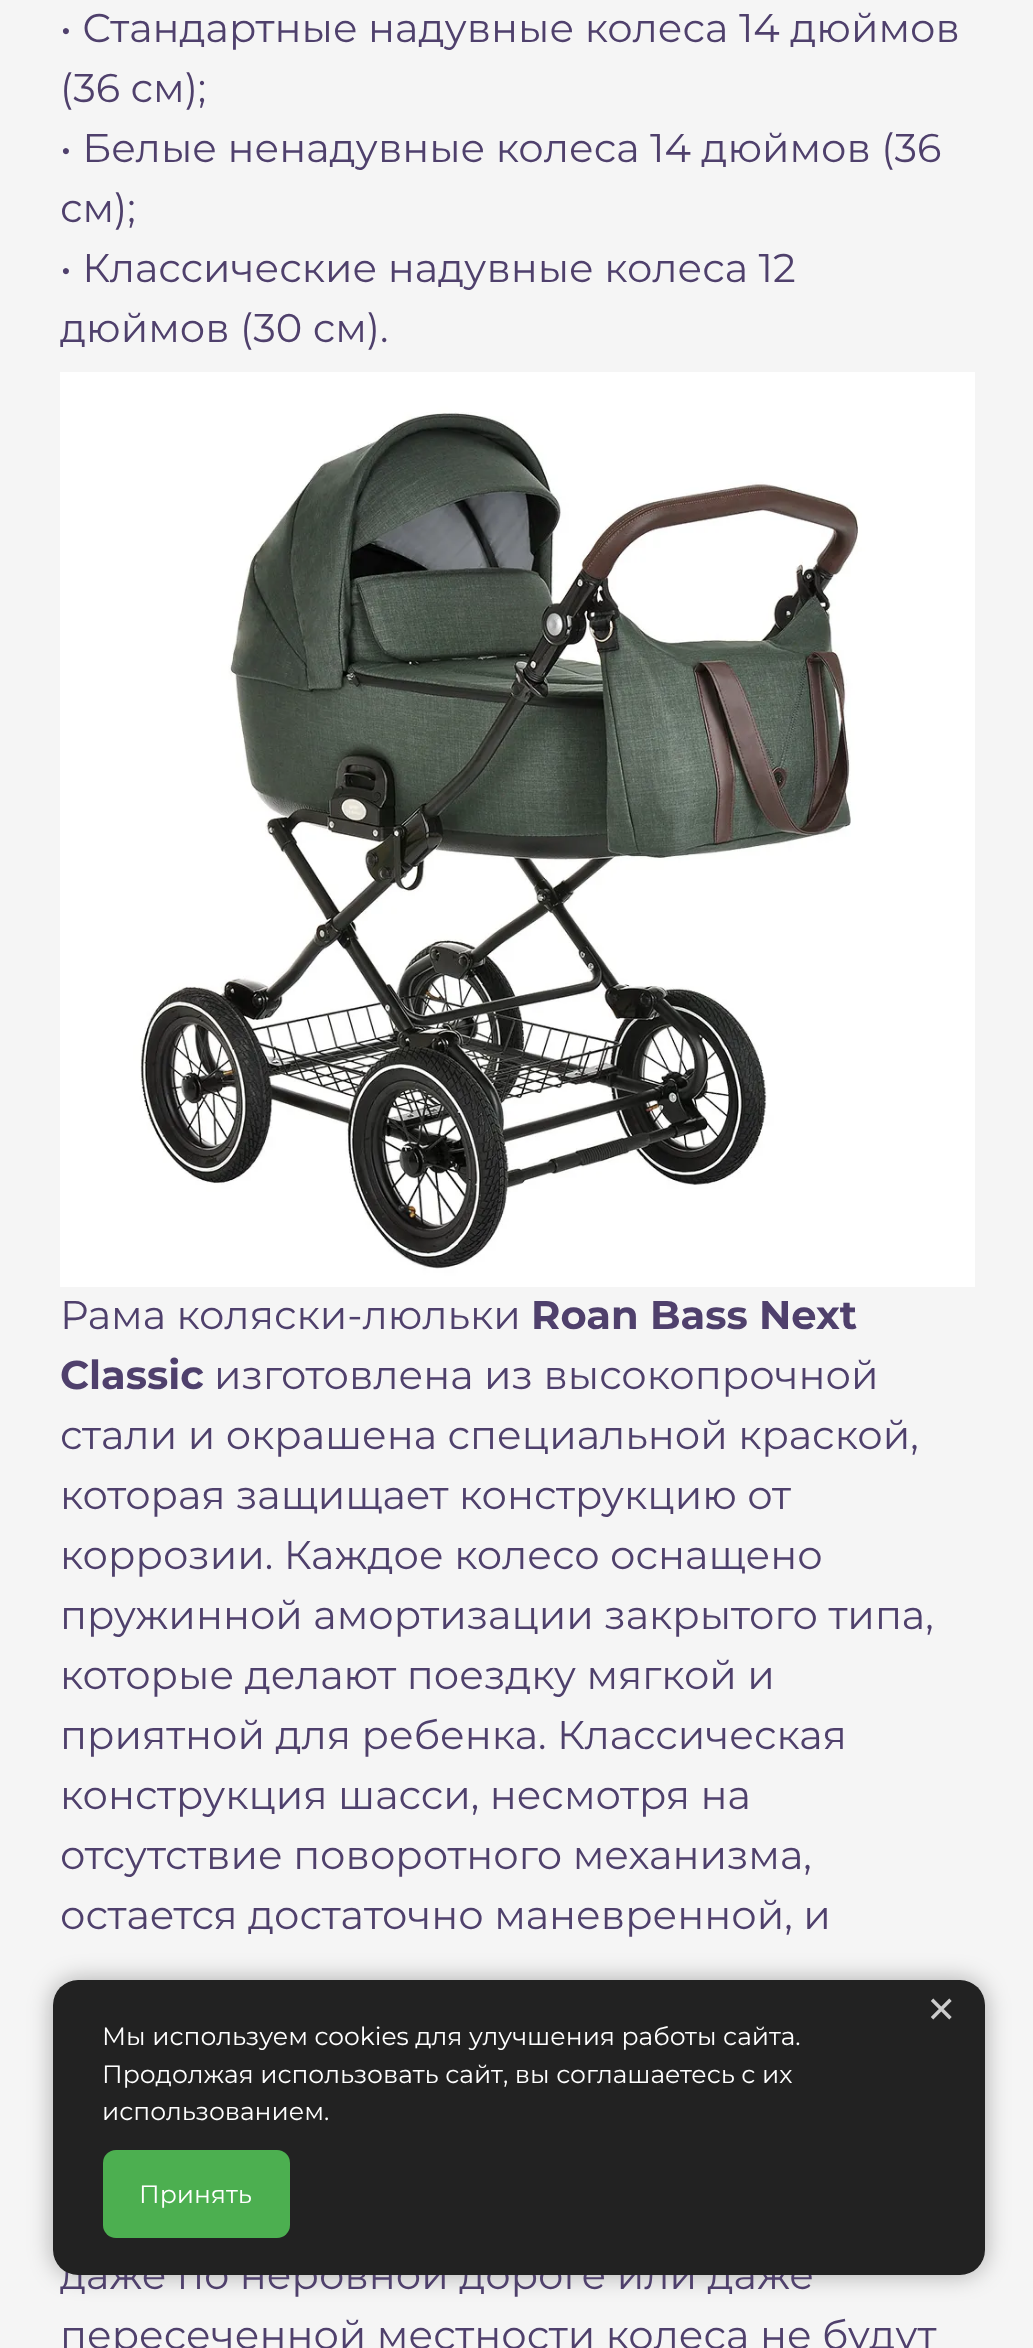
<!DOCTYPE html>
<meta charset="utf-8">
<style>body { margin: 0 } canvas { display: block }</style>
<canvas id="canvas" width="1033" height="2348"></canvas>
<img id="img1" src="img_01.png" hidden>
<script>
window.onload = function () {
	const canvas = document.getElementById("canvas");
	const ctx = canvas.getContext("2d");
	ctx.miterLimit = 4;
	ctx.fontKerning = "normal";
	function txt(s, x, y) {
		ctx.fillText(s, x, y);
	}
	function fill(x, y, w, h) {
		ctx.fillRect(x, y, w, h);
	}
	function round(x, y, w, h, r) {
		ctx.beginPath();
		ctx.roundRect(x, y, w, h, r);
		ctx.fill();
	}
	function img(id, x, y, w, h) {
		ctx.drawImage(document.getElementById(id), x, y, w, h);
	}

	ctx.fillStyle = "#F5F5F5";
	fill(0, 0, 1033, 2348);
	img("img1", 60, 372, 915, 915);
	ctx.save();
	ctx.beginPath();
	ctx.moveTo(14, 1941);
	ctx.lineTo(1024, 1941);
	ctx.lineTo(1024, 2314);
	ctx.lineTo(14, 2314);
	ctx.closePath();
	ctx.moveTo(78, 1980);
	ctx.lineTo(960, 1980);
	ctx.bezierCurveTo(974, 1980, 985, 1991, 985, 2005);
	ctx.lineTo(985, 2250);
	ctx.bezierCurveTo(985, 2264, 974, 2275, 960, 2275);
	ctx.lineTo(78, 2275);
	ctx.bezierCurveTo(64, 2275, 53, 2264, 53, 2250);
	ctx.lineTo(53, 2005);
	ctx.bezierCurveTo(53, 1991, 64, 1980, 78, 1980);
	ctx.closePath();
	ctx.clip("evenodd");
	ctx.fillStyle = "rgba(0, 0, 0, 0.3)";
	ctx.filter = "blur(12.5px)";
	ctx.beginPath();
	ctx.roundRect(53, 1980, 932, 295, 25);
	ctx.fill();
	ctx.filter = "none";
	ctx.restore();
	ctx.font = "40px Montserrat";
	ctx.fillStyle = "#4F406C";
	txt("• Стандартные надувные колеса 14 дюймов", 60, 42);
	txt("(36 см);", 60, 102);
	txt("• Белые ненадувные колеса 14 дюймов (36", 60, 162);
	txt("см);", 60, 222);
	txt("• Классические надувные колеса 12", 60, 282);
	txt("дюймов (30 см).", 60, 342);
	txt("Рама коляски-люльки", 60, 1329);
	ctx.font = "bold 40px Montserrat";
	txt("Roan Bass Next", 531, 1329);
	txt("Classic", 60, 1389);
	ctx.font = "40px Montserrat";
	txt("изготовлена из высокопрочной", 214, 1389);
	txt("стали и окрашена специальной краской,", 60, 1449);
	txt("которая защищает конструкцию от", 60, 1509);
	txt("коррозии. Каждое колесо оснащено", 60, 1569);
	txt("пружинной амортизации закрытого типа,", 60, 1629);
	txt("которые делают поездку мягкой и", 60, 1689);
	txt("приятной для ребенка. Классическая", 60, 1749);
	txt("конструкция шасси, несмотря на", 60, 1809);
	txt("отсутствие поворотного механизма,", 60, 1869);
	txt("остается достаточно маневренной, и", 60, 1929);
	txt("даже по неровной дороге или даже", 60, 2289);
	txt("пересеченной местности колеса не будут", 60, 2349);
	ctx.fillStyle = "#222222";
	round(53, 1980, 932, 295, 25);
	ctx.font = "60px Montserrat";
	ctx.fillStyle = "#CCCCCC";
	txt("×", 924, 2030);
	ctx.font = "25px Montserrat";
	ctx.fillStyle = "#FFFFFF";
	txt("Мы используем cookies для улучшения работы сайта.", 102, 2045);
	txt("Продолжая использовать сайт, вы соглашаетесь с их", 102, 2083);
	txt("использованием.", 102, 2120);
	ctx.fillStyle = "#4CAF50";
	round(103, 2150, 187, 88, 13);
	ctx.fillStyle = "#FFFFFF";
	txt("Принять", 139, 2203);
};
</script>
